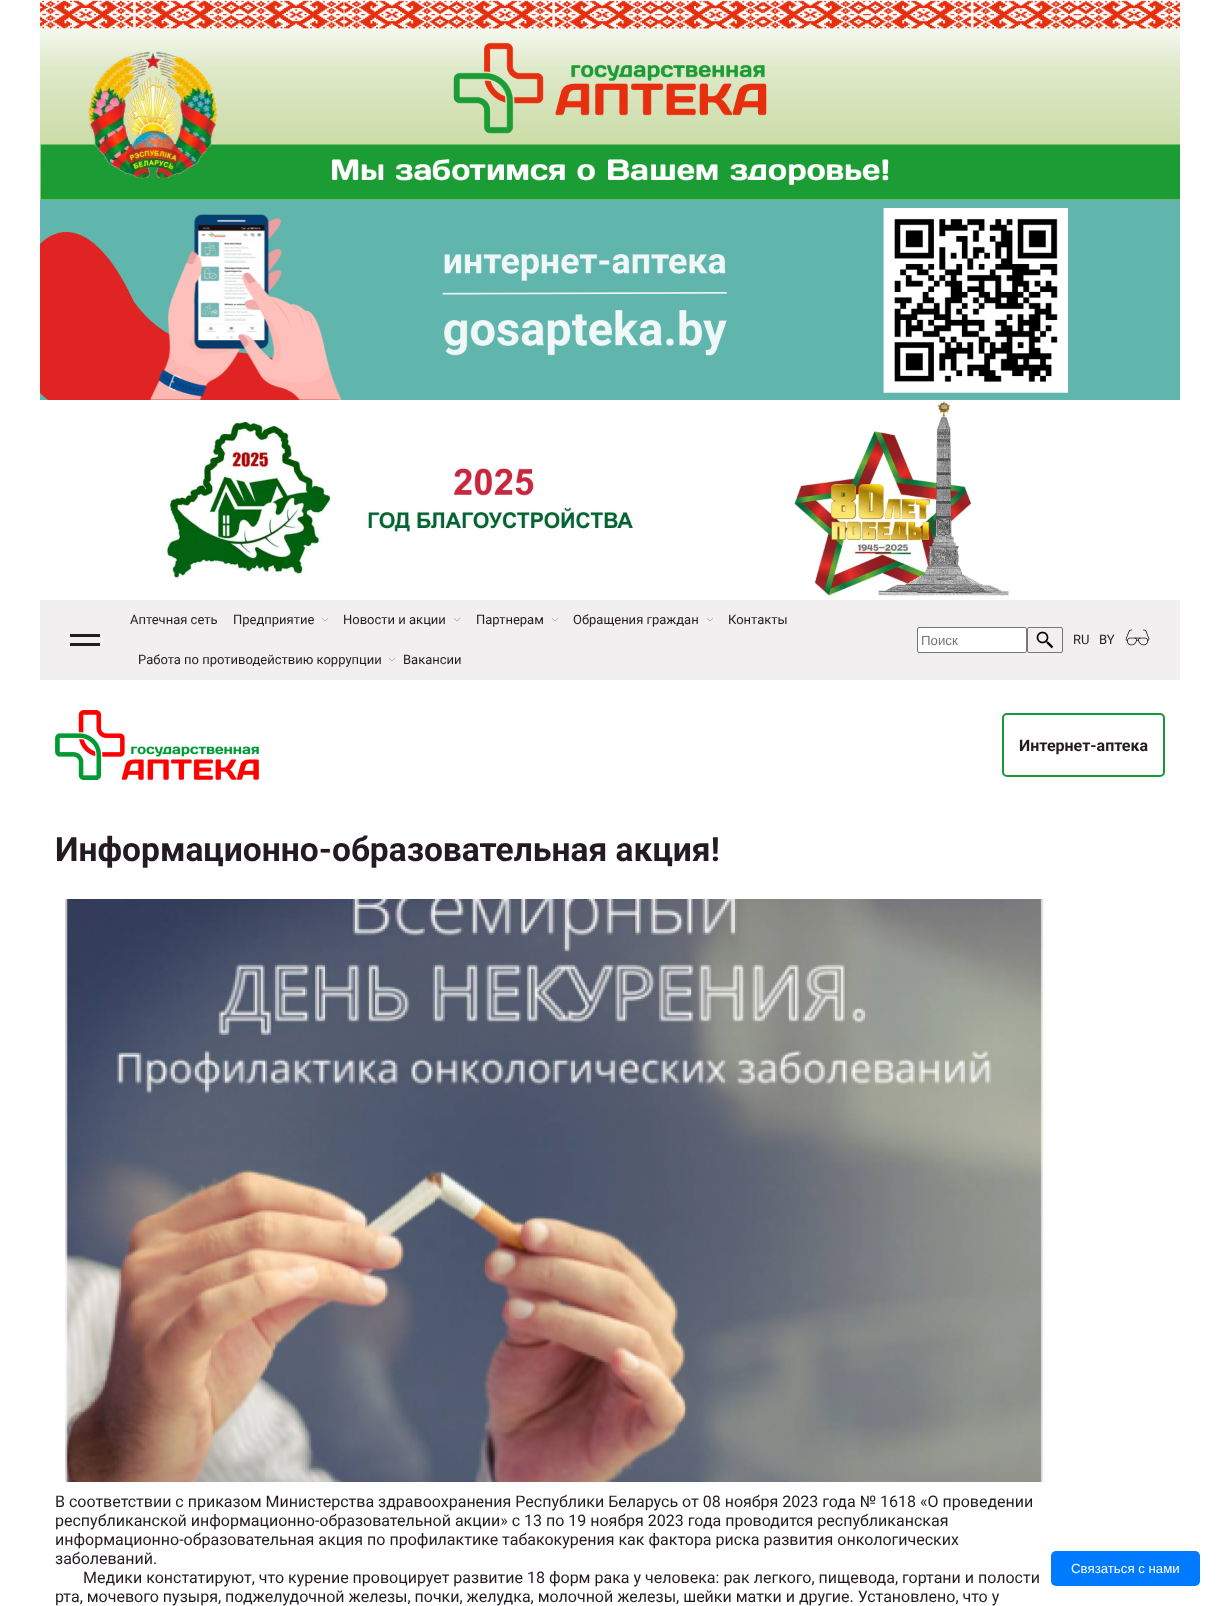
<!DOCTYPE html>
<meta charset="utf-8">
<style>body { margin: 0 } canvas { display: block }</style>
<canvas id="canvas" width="1220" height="1606"></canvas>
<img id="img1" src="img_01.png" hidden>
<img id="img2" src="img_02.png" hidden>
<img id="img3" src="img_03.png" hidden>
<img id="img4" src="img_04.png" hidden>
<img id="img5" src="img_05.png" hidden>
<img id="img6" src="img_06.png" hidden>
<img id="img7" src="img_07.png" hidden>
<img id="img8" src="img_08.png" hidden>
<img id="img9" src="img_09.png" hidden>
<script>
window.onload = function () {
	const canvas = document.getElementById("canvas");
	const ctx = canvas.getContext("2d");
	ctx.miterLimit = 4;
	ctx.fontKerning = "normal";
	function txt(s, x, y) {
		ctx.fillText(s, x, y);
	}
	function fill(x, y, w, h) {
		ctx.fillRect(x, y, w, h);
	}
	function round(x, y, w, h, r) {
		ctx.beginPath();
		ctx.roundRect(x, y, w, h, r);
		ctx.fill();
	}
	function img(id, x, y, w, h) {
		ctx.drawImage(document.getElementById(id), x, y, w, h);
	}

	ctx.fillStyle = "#FFFFFF";
	fill(0, 0, 1220, 1606);
	img("img1", 40, 0, 1140, 200);
	img("img2", 40, 200, 1140, 200);
	img("img3", 166, 400, 843, 196);
	ctx.fillStyle = "#F1EFEF";
	fill(40, 600, 1140, 80);
	ctx.fillStyle = "#231A22";
	fill(70, 634, 30, 3);
	fill(70, 643, 30, 3);
	img("img4", 322, 618, 6, 4);
	img("img5", 454, 617, 7, 5);
	img("img4", 552, 618, 6, 4);
	img("img4", 707, 618, 6, 4);
	img("img5", 389, 657, 7, 5);
	ctx.fillStyle = "#FFFFFF";
	ctx.beginPath();
	ctx.roundRect(917.5, 627.5, 109, 25, 1.5);
	ctx.fill();
	ctx.strokeStyle = "#767676";
	ctx.stroke();
	ctx.beginPath();
	ctx.roundRect(1027.5, 627.5, 35, 25, 1.5);
	ctx.stroke();
	img("img6", 1036, 631, 18, 18);
	img("img7", 1125, 629, 25, 17);
	img("img8", 55, 710, 204, 70);
	ctx.beginPath();
	ctx.roundRect(1003, 714, 161, 62, 4);
	ctx.strokeStyle = "#159839";
	ctx.lineWidth = 2;
	ctx.stroke();
	img("img9", 65, 899, 979, 583);
	ctx.fillStyle = "#007BFF";
	round(1051, 1551, 149, 35, 5);
	ctx.font = "13px Roboto";
	ctx.fillStyle = "#231A22";
	txt("Аптечная сеть", 130, 624);
	txt("Предприятие", 233, 624);
	txt("Новости и акции", 343, 624);
	txt("Партнерам", 476, 624);
	txt("Обращения граждан", 573, 624);
	txt("Контакты", 728, 624);
	txt("Работа по противодействию коррупции", 138, 664);
	txt("Вакансии", 403, 664);
	ctx.font = "13.25px Liberation Sans";
	ctx.fillStyle = "#757575";
	txt("Поиск", 921, 645);
	ctx.font = "13px Roboto";
	ctx.fillStyle = "#231A22";
	txt("RU", 1073, 644);
	txt("BY", 1099, 644);
	ctx.font = "bold 16px Roboto";
	txt("Интернет-аптека", 1019, 751);
	ctx.font = "bold 33.6px Roboto";
	txt("Информационно-образовательная акция!", 55, 861);
	ctx.font = "16px Roboto";
	txt("В соответствии с приказом Министерства здравоохранения Республики Беларусь от 08 ноября 2023 года № 1618 «О проведении", 55, 1507);
	txt("республиканской информационно-образовательной акции» с 13 по 19 ноября 2023 года проводится республиканская", 55, 1526);
	txt("информационно-образовательная акция по профилактике табакокурения как фактора риска развития онкологических", 55, 1545);
	txt("заболеваний.", 55, 1564);
	txt("Медики констатируют, что курение провоцирует развитие 18 форм рака у человека: рак легкого, пищевода, гортани и полости", 83, 1583);
	txt("рта, мочевого пузыря, поджелудочной железы, почки, желудка, молочной железы, шейки матки и другие. Установлено, что у", 55, 1602);
	ctx.font = "13.25px Liberation Sans";
	ctx.fillStyle = "#FFFFFF";
	txt("Связаться с нами", 1071, 1573);
};
</script>
